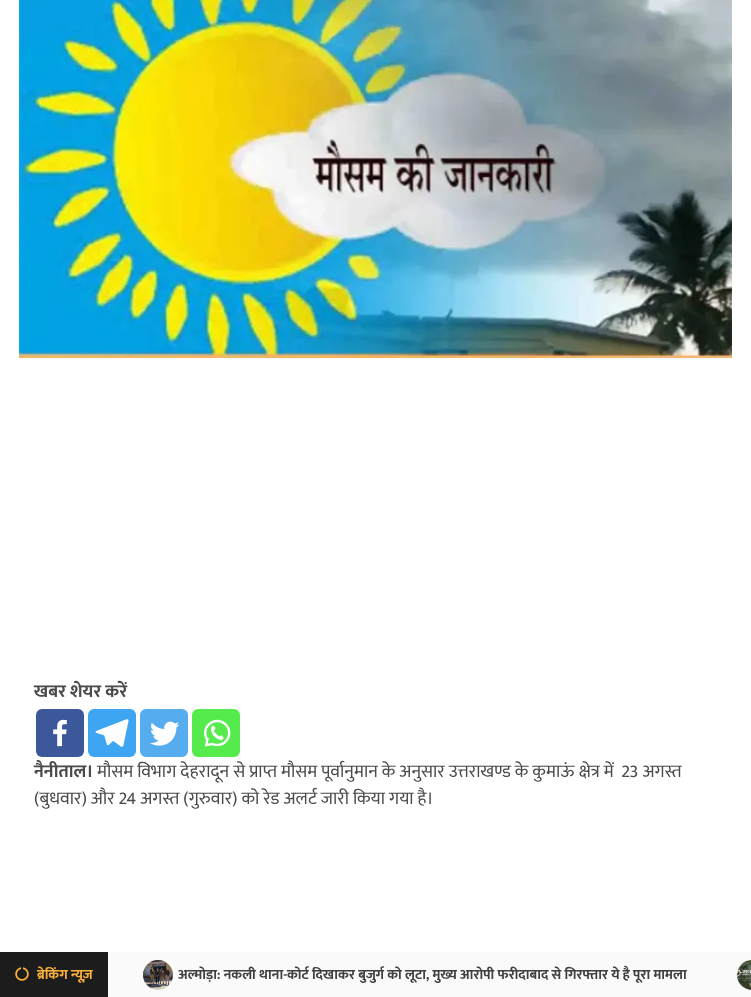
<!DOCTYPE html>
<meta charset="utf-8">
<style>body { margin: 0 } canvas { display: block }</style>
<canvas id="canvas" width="751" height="997"></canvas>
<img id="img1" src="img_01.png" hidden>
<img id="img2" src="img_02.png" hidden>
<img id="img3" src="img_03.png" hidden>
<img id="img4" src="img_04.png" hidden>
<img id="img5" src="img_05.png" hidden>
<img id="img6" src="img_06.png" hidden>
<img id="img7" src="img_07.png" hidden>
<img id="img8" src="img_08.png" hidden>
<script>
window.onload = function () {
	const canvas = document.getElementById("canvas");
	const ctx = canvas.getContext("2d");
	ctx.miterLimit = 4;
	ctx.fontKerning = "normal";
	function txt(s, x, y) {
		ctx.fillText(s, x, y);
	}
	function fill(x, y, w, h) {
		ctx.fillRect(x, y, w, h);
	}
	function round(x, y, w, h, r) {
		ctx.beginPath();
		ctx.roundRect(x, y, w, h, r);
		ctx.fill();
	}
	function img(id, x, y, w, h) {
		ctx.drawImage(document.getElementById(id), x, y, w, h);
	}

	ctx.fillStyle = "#FFFFFF";
	fill(0, 0, 751, 997);
	img("img1", 19, 0, 713, 358);
	ctx.fillStyle = "#3C589A";
	round(36, 709, 48, 48, 6);
	img("img2", 53, 719, 14, 28);
	ctx.fillStyle = "#3DA5F1";
	round(88, 709, 48, 48, 6);
	img("img3", 95, 719, 34, 28);
	ctx.fillStyle = "#55ACEE";
	round(140, 709, 48, 48, 6);
	img("img4", 150, 721, 30, 25);
	ctx.fillStyle = "#55EB4C";
	round(192, 709, 48, 48, 6);
	img("img5", 204, 719, 27, 28);
	ctx.fillStyle = "#FAFAFA";
	fill(108, 952, 643, 45);
	ctx.fillStyle = "#1C1C1C";
	fill(0, 952, 108, 45);
	img("img6", 15, 967, 14, 14);
	img("img7", 143, 960, 30, 30);
	img("img8", 737, 960, 14, 30);
	ctx.font = "bold 18px Mukta";
	ctx.fillStyle = "#4A4A4A";
	txt("खबर शेयर करें", 34, 697);
	txt("नैनीताल।", 34, 777);
	ctx.font = "18px Mukta";
	txt("मौसम विभाग देहरादून से प्राप्त मौसम पूर्वानुमान के अनुसार उत्तराखण्ड के कुमाऊं क्षेत्र में  23 अगस्त", 97, 777);
	txt("(बुधवार) और 24 अगस्त (गुरुवार) को रेड अलर्ट जारी किया गया है।", 34, 804);
	ctx.font = "bold 14px Mukta";
	ctx.fillStyle = "#FBB03B";
	txt("ब्रेकिंग न्यूज़", 37, 979);
	ctx.fillStyle = "#404040";
	txt("अल्मोड़ा: नकली थाना-कोर्ट दिखाकर बुजुर्ग को लूटा, मुख्य आरोपी फरीदाबाद से गिरफ्तार ये है पूरा मामला", 178, 979);
};
</script>
